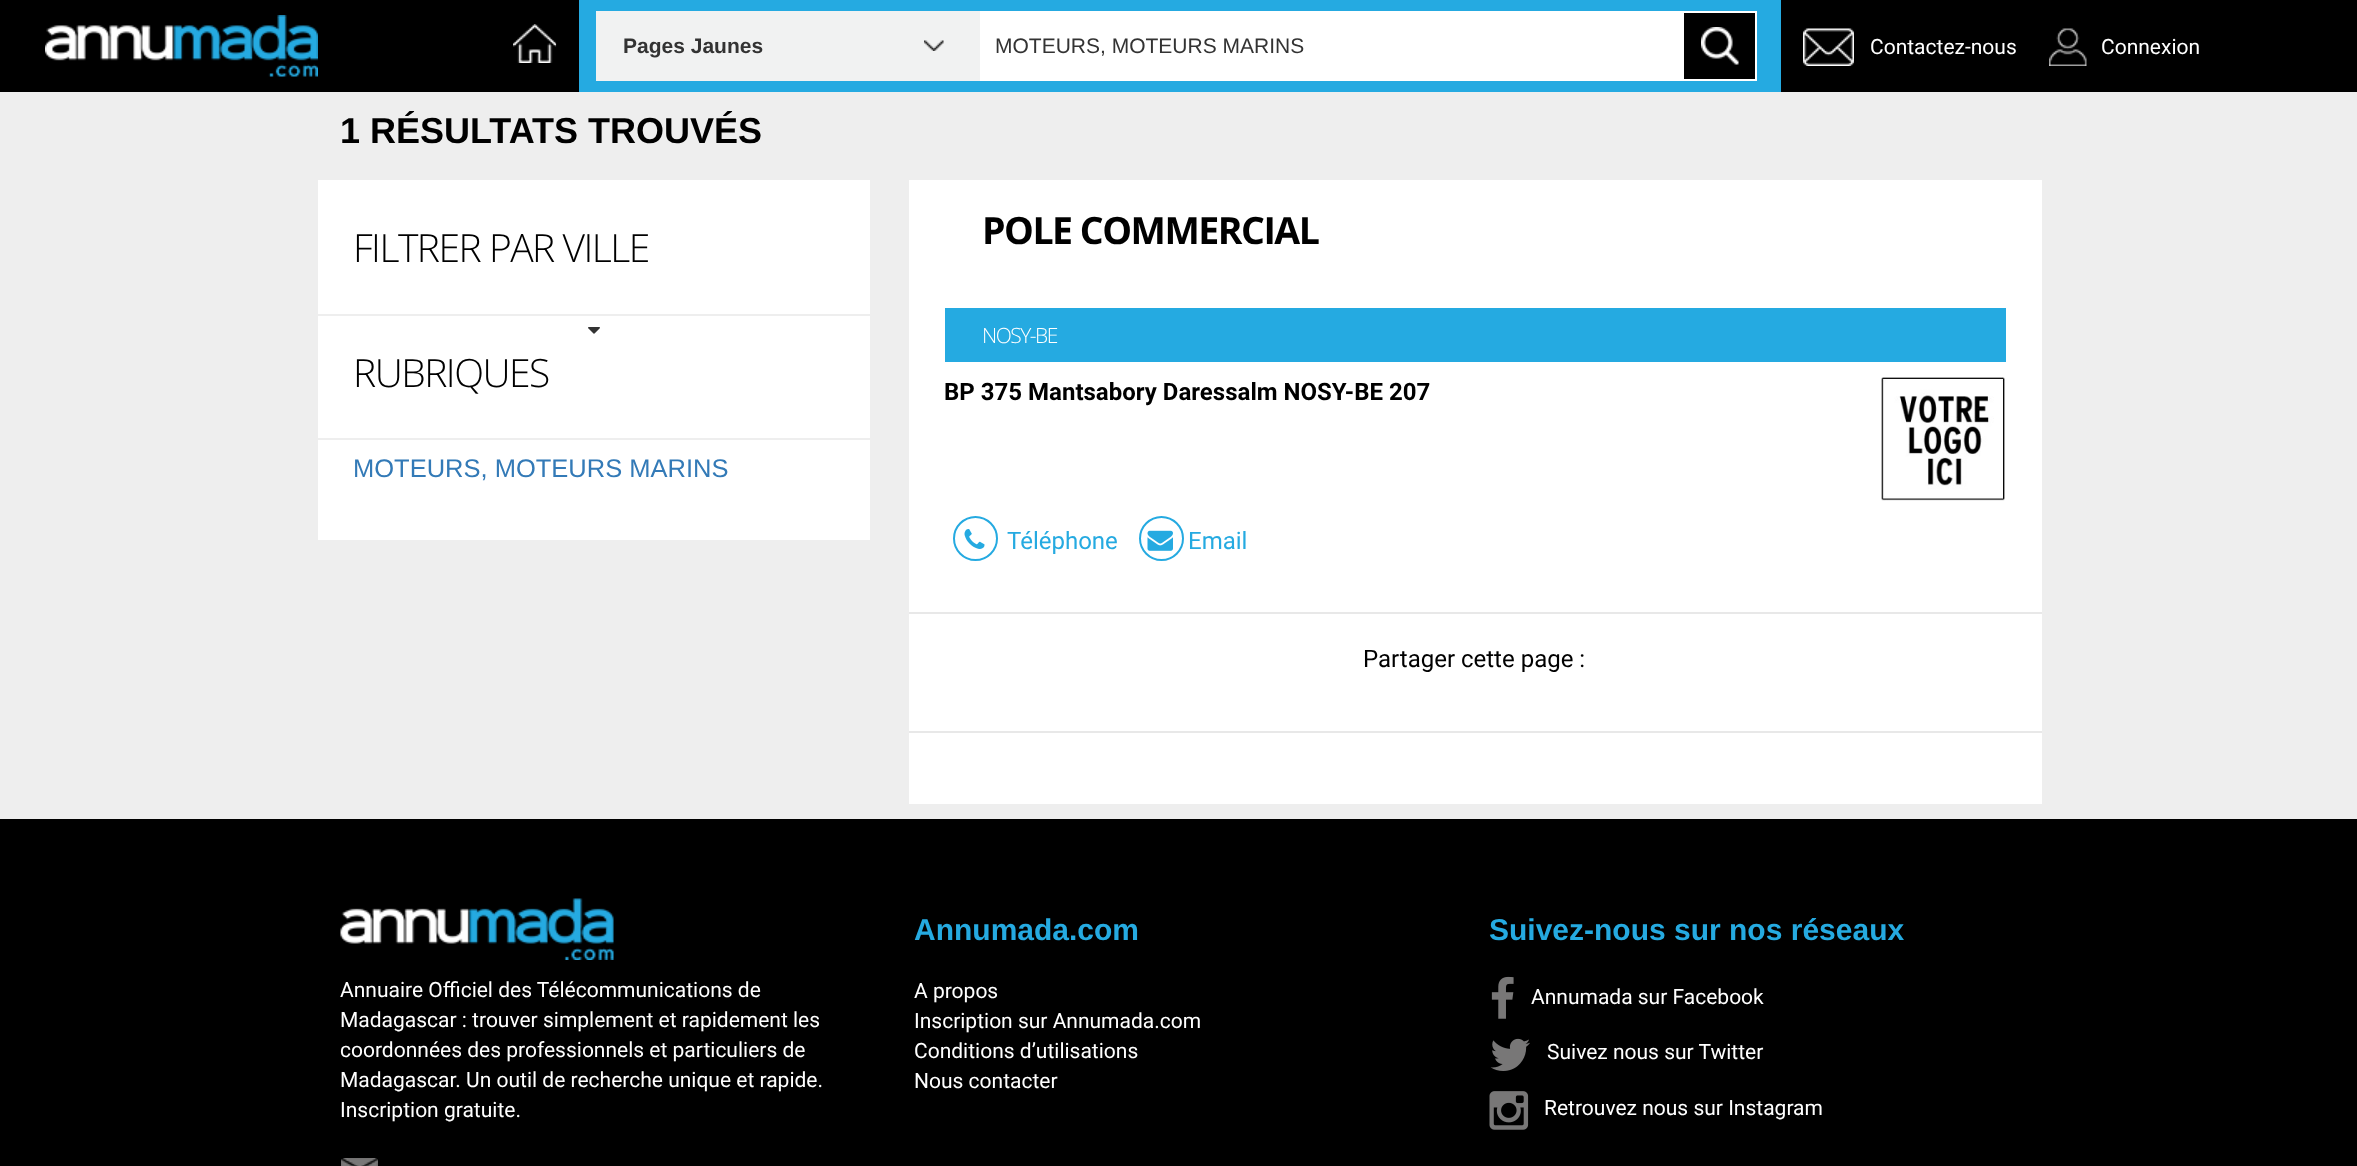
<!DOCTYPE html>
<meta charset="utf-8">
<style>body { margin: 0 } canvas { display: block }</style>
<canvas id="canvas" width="2357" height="1166"></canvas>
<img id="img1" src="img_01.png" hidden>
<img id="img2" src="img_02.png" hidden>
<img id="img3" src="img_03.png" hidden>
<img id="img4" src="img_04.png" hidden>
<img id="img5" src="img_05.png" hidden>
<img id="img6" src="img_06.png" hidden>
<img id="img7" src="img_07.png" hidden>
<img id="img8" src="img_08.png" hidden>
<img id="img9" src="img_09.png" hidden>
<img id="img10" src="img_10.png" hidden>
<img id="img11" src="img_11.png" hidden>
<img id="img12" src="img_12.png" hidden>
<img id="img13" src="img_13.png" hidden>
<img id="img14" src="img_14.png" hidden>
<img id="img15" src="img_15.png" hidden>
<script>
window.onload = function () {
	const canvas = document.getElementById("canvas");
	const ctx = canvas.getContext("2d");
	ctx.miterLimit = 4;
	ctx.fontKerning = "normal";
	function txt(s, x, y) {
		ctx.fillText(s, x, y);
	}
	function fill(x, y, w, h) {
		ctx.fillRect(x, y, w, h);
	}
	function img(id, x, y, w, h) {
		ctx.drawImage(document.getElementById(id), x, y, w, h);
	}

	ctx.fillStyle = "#EEEEEE";
	fill(0, 0, 2357, 1166);
	ctx.fillStyle = "#000000";
	fill(0, 0, 2357, 92);
	img("img1", 45, 15, 273, 62);
	img("img2", 513, 24, 44, 39);
	ctx.fillStyle = "#25AAE1";
	fill(579, 0, 1202, 92);
	ctx.fillStyle = "#F1F2F2";
	fill(596, 11, 384, 70);
	img("img3", 924, 40, 20, 11);
	ctx.fillStyle = "#FFFFFF";
	fill(980, 11, 702, 70);
	ctx.fillStyle = "#000000";
	fill(1684, 13, 71, 66);
	img("img4", 1701, 27, 38, 38);
	ctx.strokeStyle = "#FFFFFF";
	ctx.lineWidth = 2;
	ctx.strokeRect(1683, 12, 73, 68);
	img("img5", 1803, 28, 51, 38);
	img("img6", 2049, 28, 38, 38);
	ctx.fillStyle = "#FFFFFF";
	fill(318, 180, 552, 360);
	ctx.fillStyle = "#EEEEEE";
	fill(318, 314, 552, 2);
	img("img7", 588, 327, 12, 7);
	fill(318, 438, 552, 2);
	ctx.fillStyle = "#FFFFFF";
	fill(909, 180, 1133, 624);
	ctx.fillStyle = "#E8E8E8";
	fill(909, 731, 1133, 2);
	ctx.fillStyle = "#25AAE1";
	fill(945, 308, 1061, 54);
	ctx.fillStyle = "#E8E8E8";
	fill(909, 612, 1133, 2);
	img("img8", 1881, 377, 124, 124);
	ctx.beginPath();
	ctx.arc(975.5, 538.5, 21.5, 0, Math.PI * 2);
	ctx.strokeStyle = "#25AAE1";
	ctx.stroke();
	img("img9", 964, 529, 21, 20);
	ctx.beginPath();
	ctx.arc(1161.5, 538.5, 21.5, 0, Math.PI * 2);
	ctx.stroke();
	img("img10", 1147, 530, 26, 21);
	ctx.fillStyle = "#000000";
	fill(0, 819, 2357, 347);
	img("img11", 340, 898, 274, 62);
	img("img12", 341, 1158, 37, 8);
	img("img13", 1491, 976, 23, 43);
	img("img14", 1490, 1038, 40, 33);
	img("img15", 1489, 1091, 40, 39);
	ctx.font = "bold 21px Liberation Sans";
	ctx.fillStyle = "#333333";
	txt("Pages Jaunes", 623, 53);
	ctx.font = "21px Liberation Sans";
	txt("MOTEURS, MOTEURS MARINS", 995, 53);
	ctx.font = "21px Roboto";
	ctx.fillStyle = "#FFFFFF";
	txt("Contactez-nous", 1870, 54);
	txt("Connexion", 2101, 54);
	ctx.font = "bold 36px Liberation Sans";
	ctx.fillStyle = "#000000";
	txt("1 RÉSULTATS TROUVÉS", 340, 143);
	ctx.letterSpacing = "-1.5px";
	ctx.font = "300 39px Open Sans";
	txt("FILTRER PAR VILLE", 353, 262);
	txt("RUBRIQUES", 353, 387);
	ctx.letterSpacing = "0px";
	ctx.font = "25.5px Liberation Sans";
	ctx.fillStyle = "#337AB7";
	txt("MOTEURS, MOTEURS MARINS", 353, 477);
	ctx.letterSpacing = "-1.5px";
	ctx.font = "bold 37.5px Open Sans";
	ctx.fillStyle = "#000000";
	txt("POLE COMMERCIAL", 982, 244);
	ctx.font = "300 21px Open Sans";
	ctx.fillStyle = "#FFFFFF";
	txt("NOSY-BE", 982, 343);
	ctx.letterSpacing = "0px";
	ctx.font = "bold 24px Roboto";
	ctx.fillStyle = "#000000";
	txt("BP 375 Mantsabory Daressalm NOSY-BE 207", 944, 400);
	ctx.font = "24px Roboto";
	ctx.fillStyle = "#25AAE1";
	txt("Téléphone", 1007, 549);
	txt("Email", 1188, 549);
	ctx.fillStyle = "#000000";
	txt("Partager cette page :", 1363, 667);
	ctx.font = "21px Roboto";
	ctx.fillStyle = "#FFFFFF";
	txt("Annuaire Officiel des Télécommunications de", 340, 997);
	txt("Madagascar : trouver simplement et rapidement les", 340, 1027);
	txt("coordonnées des professionnels et particuliers de", 340, 1057);
	txt("Madagascar. Un outil de recherche unique et rapide.", 340, 1087);
	txt("Inscription gratuite.", 340, 1117);
	ctx.font = "bold 30px Liberation Sans";
	ctx.fillStyle = "#25AAE1";
	txt("Annumada.com", 914, 940);
	ctx.font = "21px Roboto";
	ctx.fillStyle = "#FFFFFF";
	txt("A propos", 914, 998);
	txt("Inscription sur Annumada.com", 914, 1028);
	txt("Conditions d’utilisations", 914, 1058);
	txt("Nous contacter", 914, 1088);
	ctx.font = "bold 30px Liberation Sans";
	ctx.fillStyle = "#25AAE1";
	txt("Suivez-nous sur nos réseaux", 1489, 940);
	ctx.font = "21px Roboto";
	ctx.fillStyle = "#FFFFFF";
	txt("Annumada sur Facebook", 1531, 1004);
	txt("Suivez nous sur Twitter", 1547, 1059);
	txt("Retrouvez nous sur Instagram", 1544, 1115);
};
</script>
